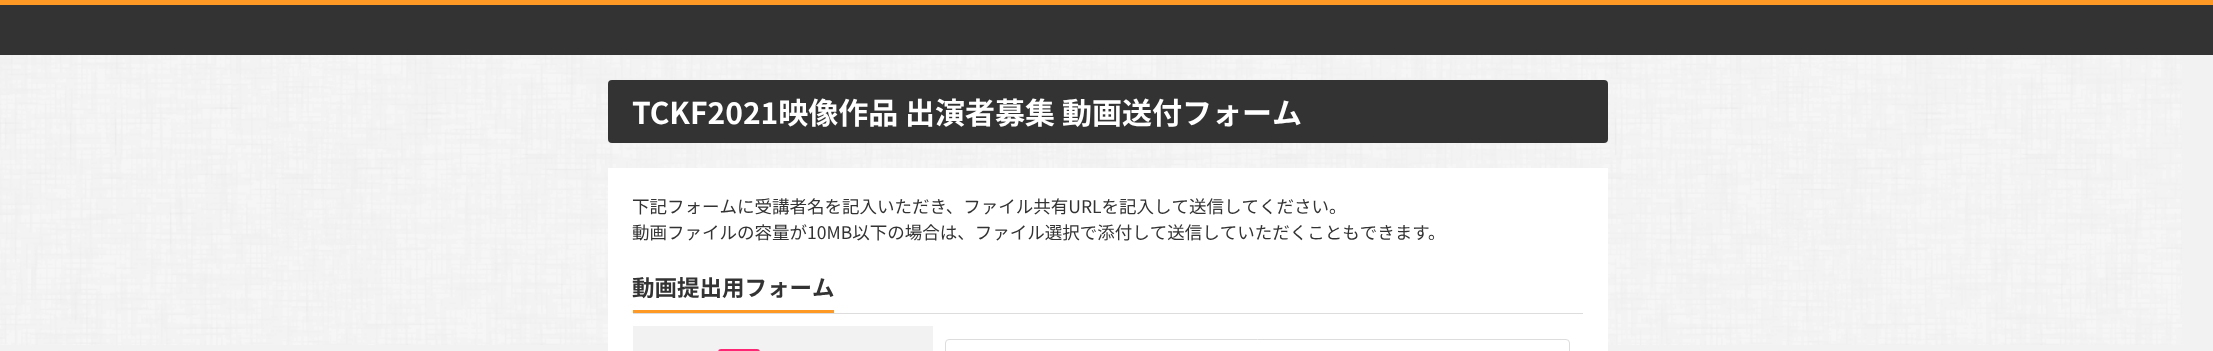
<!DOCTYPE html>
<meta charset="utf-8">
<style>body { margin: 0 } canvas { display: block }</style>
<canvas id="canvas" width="2213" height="351"></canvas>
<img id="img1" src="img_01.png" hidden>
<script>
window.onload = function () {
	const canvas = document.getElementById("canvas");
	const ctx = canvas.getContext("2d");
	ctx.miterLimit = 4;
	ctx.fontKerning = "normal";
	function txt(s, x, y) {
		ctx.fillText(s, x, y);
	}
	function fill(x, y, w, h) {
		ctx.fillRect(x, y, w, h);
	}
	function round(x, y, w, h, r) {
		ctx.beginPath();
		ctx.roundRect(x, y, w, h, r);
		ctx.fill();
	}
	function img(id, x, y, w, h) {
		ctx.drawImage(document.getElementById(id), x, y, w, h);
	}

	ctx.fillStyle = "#FF9926";
	fill(0, 0, 2213, 351);
	ctx.fillStyle = "#F2F2F2";
	fill(0, 55, 2213, 296);
	img("img1", 0, 55, 2182, 290);
	ctx.fillStyle = "#333333";
	fill(0, 5, 2213, 50);
	round(608, 80, 1000, 63, 4);
	ctx.fillStyle = "#FFFFFF";
	fill(608, 168, 1000, 183);
	ctx.fillStyle = "#DDDDDD";
	fill(633, 313, 950, 1);
	ctx.fillStyle = "#FF9926";
	fill(633, 310, 201, 3);
	ctx.fillStyle = "#F2F2F2";
	fill(633, 326, 300, 25);
	ctx.fillStyle = "#FF2673";
	round(718, 349, 42, 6, 4);
	ctx.beginPath();
	ctx.roundRect(945.5, 339.5, 624, 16, 3.5);
	ctx.strokeStyle = "#DDDDDD";
	ctx.stroke();
	ctx.font = "bold 30px Noto Sans JP";
	ctx.fillStyle = "#FFFFFF";
	txt("TCKF2021映像作品 出演者募集 動画送付フォーム", 632, 124);
	ctx.font = "17.5px Noto Sans JP";
	ctx.fillStyle = "#333333";
	txt("下記フォームに受講者名を記入いただき、ファイル共有URLを記入して送信してください。", 632, 213);
	txt("動画ファイルの容量が10MB以下の場合は、ファイル選択で添付して送信していただくこともできます。", 632, 239);
	ctx.font = "bold 22.5px Noto Sans JP";
	txt("動画提出用フォーム", 632, 296);
};
</script>
